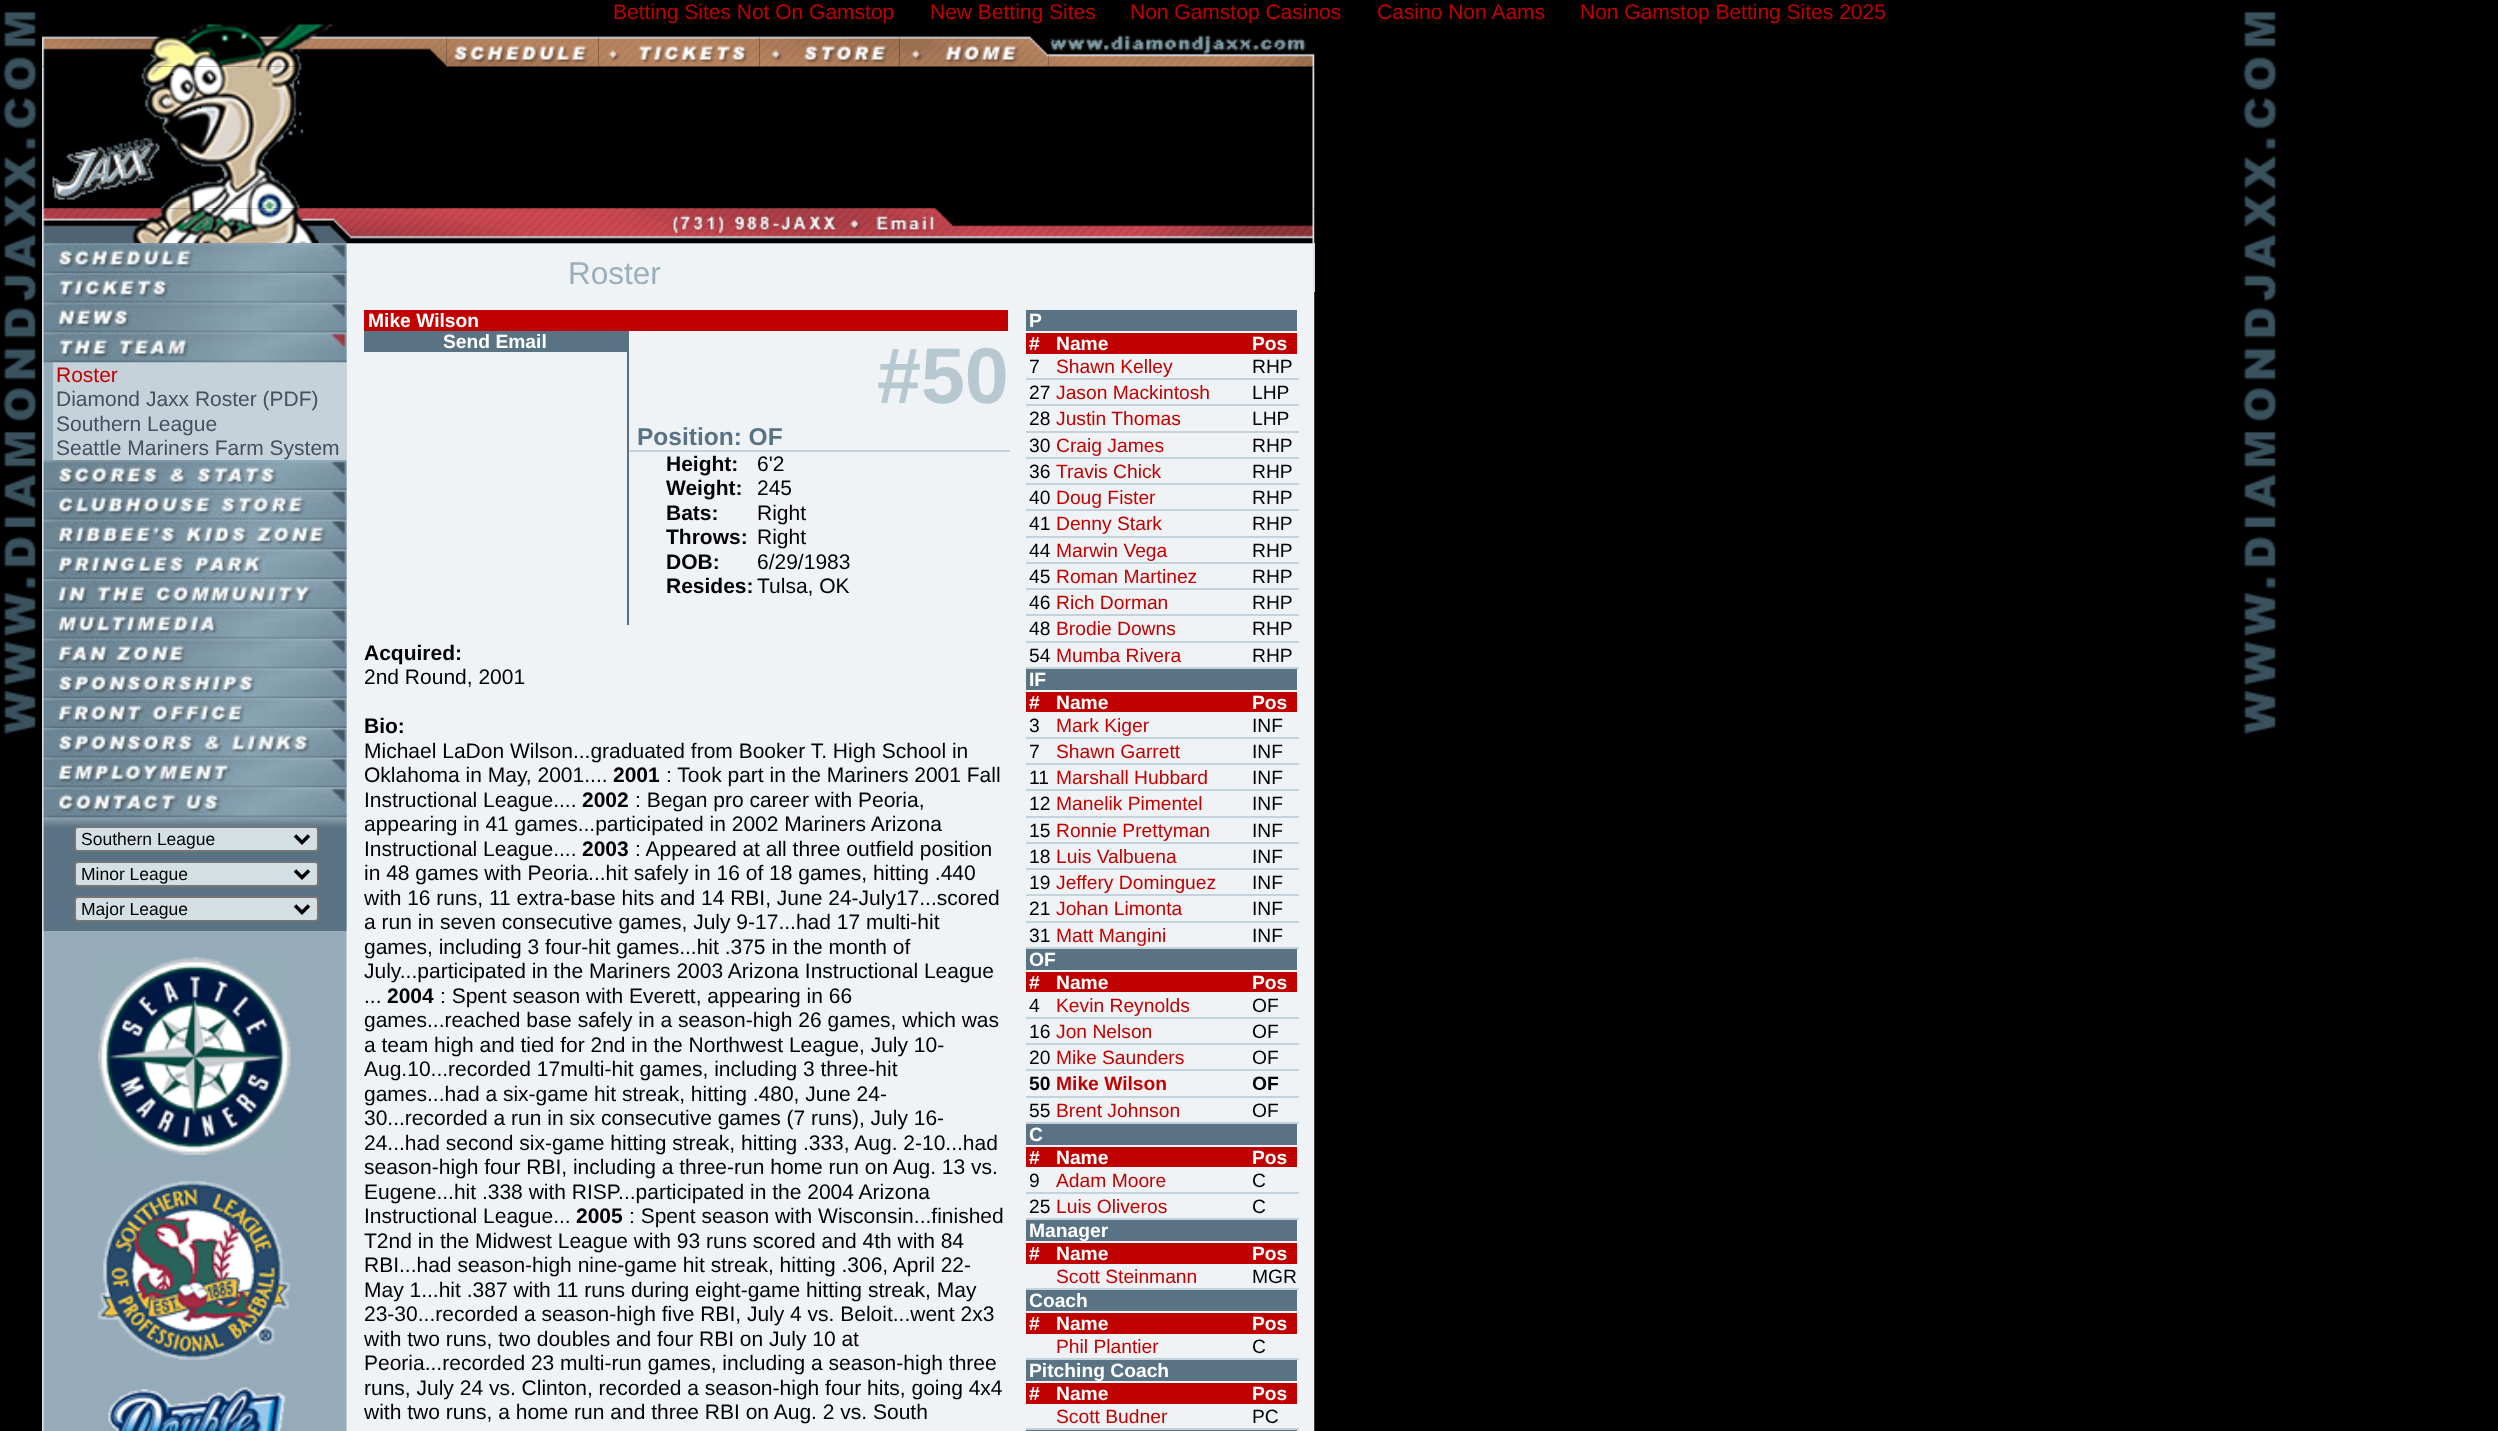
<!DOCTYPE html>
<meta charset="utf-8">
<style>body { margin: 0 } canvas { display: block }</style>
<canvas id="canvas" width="2498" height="1431"></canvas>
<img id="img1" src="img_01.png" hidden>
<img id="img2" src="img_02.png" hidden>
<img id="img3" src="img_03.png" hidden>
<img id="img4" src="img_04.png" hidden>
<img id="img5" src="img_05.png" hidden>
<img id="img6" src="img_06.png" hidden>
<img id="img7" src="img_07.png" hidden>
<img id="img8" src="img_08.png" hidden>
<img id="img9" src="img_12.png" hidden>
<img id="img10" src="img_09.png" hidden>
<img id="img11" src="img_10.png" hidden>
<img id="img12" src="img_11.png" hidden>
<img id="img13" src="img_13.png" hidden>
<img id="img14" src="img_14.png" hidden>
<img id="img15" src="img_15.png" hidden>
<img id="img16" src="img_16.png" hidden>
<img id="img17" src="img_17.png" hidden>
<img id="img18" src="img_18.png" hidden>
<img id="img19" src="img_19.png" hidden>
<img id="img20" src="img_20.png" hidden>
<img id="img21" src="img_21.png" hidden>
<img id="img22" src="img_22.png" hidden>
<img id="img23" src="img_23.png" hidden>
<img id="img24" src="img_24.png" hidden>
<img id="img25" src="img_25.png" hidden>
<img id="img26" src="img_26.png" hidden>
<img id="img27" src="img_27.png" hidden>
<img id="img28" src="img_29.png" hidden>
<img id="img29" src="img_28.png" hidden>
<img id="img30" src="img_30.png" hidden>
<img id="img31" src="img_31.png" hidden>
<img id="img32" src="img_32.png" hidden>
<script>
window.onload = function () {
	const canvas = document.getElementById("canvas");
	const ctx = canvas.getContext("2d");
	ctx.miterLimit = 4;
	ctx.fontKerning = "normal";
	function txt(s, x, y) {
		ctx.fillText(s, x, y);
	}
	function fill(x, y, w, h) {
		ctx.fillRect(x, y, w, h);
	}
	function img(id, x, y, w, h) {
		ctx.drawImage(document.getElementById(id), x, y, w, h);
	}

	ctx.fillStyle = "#FFFFFF";
	fill(0, 0, 2498, 1431);
	img("img1", 0, 0, 2498, 1431);
	img("img2", 42, 24, 405, 43);
	img("img3", 446, 36, 153, 31);
	img("img4", 598, 36, 162, 31);
	img("img5", 759, 36, 141, 31);
	img("img6", 899, 36, 150, 31);
	img("img7", 1048, 34, 267, 33);
	img("img8", 42, 66, 1273, 143);
	img("img9", 42, 243, 1273, 1188);
	img("img10", 42, 208, 826, 36);
	img("img11", 868, 208, 84, 31);
	ctx.fillStyle = "#D9DFE6";
	fill(1313, 243, 2, 49);
	img("img12", 952, 208, 363, 36);
	img("img13", 43, 243, 304, 30);
	img("img14", 43, 273, 304, 30);
	img("img15", 43, 302, 304, 31);
	ctx.fillStyle = "#C5D2DA";
	fill(53, 362, 294, 98);
	ctx.fillStyle = "#95ABB9";
	fill(44, 362, 1, 98);
	img("img16", 43, 332, 304, 31);
	img("img17", 43, 460, 304, 30);
	img("img18", 43, 490, 304, 30);
	img("img19", 43, 519, 304, 31);
	img("img20", 43, 549, 304, 31);
	img("img21", 43, 579, 304, 30);
	img("img22", 43, 609, 304, 30);
	img("img23", 43, 638, 304, 31);
	img("img24", 43, 668, 304, 31);
	img("img25", 43, 698, 304, 30);
	img("img26", 43, 728, 304, 30);
	img("img27", 43, 757, 304, 31);
	img("img28", 43, 817, 304, 114);
	img("img29", 43, 787, 304, 31);
	ctx.fillStyle = "#D5E0E4";
	ctx.beginPath();
	ctx.roundRect(75, 827, 243, 24, 3);
	ctx.fill();
	ctx.strokeStyle = "#767676";
	ctx.lineWidth = 2;
	ctx.stroke();
	ctx.beginPath();
	ctx.moveTo(295, 835.5);
	ctx.lineTo(302, 842.5);
	ctx.lineTo(309, 835.5);
	ctx.strokeStyle = "#000000";
	ctx.lineWidth = 3.5;
	ctx.stroke();
	ctx.beginPath();
	ctx.roundRect(75, 862, 243, 24, 3);
	ctx.fill();
	ctx.strokeStyle = "#767676";
	ctx.lineWidth = 2;
	ctx.stroke();
	ctx.beginPath();
	ctx.moveTo(295, 870.5);
	ctx.lineTo(302, 877.5);
	ctx.lineTo(309, 870.5);
	ctx.strokeStyle = "#000000";
	ctx.lineWidth = 3.5;
	ctx.stroke();
	ctx.beginPath();
	ctx.roundRect(75, 897, 243, 24, 3);
	ctx.fill();
	ctx.strokeStyle = "#767676";
	ctx.lineWidth = 2;
	ctx.stroke();
	ctx.beginPath();
	ctx.moveTo(295, 905.5);
	ctx.lineTo(302, 912.5);
	ctx.lineTo(309, 905.5);
	ctx.strokeStyle = "#000000";
	ctx.lineWidth = 3.5;
	ctx.stroke();
	img("img30", 98, 957, 193, 198);
	img("img31", 98, 1181, 193, 179);
	img("img32", 108, 1387, 178, 44);
	ctx.fillStyle = "#BF0101";
	fill(364, 310, 644, 21);
	ctx.fillStyle = "#C5D2DA";
	fill(627, 450, 383, 2);
	ctx.fillStyle = "#597384";
	fill(627, 331, 2, 294);
	fill(364, 331, 263, 21);
	fill(1026, 310, 271, 21);
	ctx.fillStyle = "#BF0101";
	fill(1026, 333, 271, 21);
	ctx.fillStyle = "#C5D2DA";
	fill(1026, 378, 273, 2);
	fill(1026, 404, 273, 2);
	fill(1026, 431, 273, 2);
	fill(1026, 457, 273, 2);
	fill(1026, 483, 273, 2);
	fill(1026, 509, 273, 2);
	fill(1026, 536, 273, 2);
	fill(1026, 562, 273, 2);
	fill(1026, 588, 273, 2);
	fill(1026, 614, 273, 2);
	fill(1026, 641, 273, 2);
	fill(1026, 667, 273, 2);
	ctx.fillStyle = "#597384";
	fill(1026, 669, 271, 21);
	ctx.fillStyle = "#BF0101";
	fill(1026, 692, 271, 20);
	ctx.fillStyle = "#C5D2DA";
	fill(1026, 737, 273, 2);
	fill(1026, 763, 273, 2);
	fill(1026, 789, 273, 2);
	fill(1026, 816, 273, 2);
	fill(1026, 842, 273, 2);
	fill(1026, 868, 273, 2);
	fill(1026, 894, 273, 2);
	fill(1026, 921, 273, 2);
	fill(1026, 947, 273, 2);
	ctx.fillStyle = "#597384";
	fill(1026, 949, 271, 21);
	ctx.fillStyle = "#BF0101";
	fill(1026, 972, 271, 20);
	ctx.fillStyle = "#C5D2DA";
	fill(1026, 1017, 273, 2);
	fill(1026, 1043, 273, 2);
	fill(1026, 1069, 273, 2);
	fill(1026, 1096, 273, 2);
	fill(1026, 1122, 273, 2);
	ctx.fillStyle = "#597384";
	fill(1026, 1124, 271, 21);
	ctx.fillStyle = "#BF0101";
	fill(1026, 1147, 271, 20);
	ctx.fillStyle = "#C5D2DA";
	fill(1026, 1192, 273, 2);
	fill(1026, 1218, 273, 2);
	ctx.fillStyle = "#597384";
	fill(1026, 1220, 271, 21);
	ctx.fillStyle = "#BF0101";
	fill(1026, 1243, 271, 21);
	ctx.fillStyle = "#C5D2DA";
	fill(1026, 1288, 273, 2);
	ctx.fillStyle = "#597384";
	fill(1026, 1290, 271, 21);
	ctx.fillStyle = "#BF0101";
	fill(1026, 1313, 271, 21);
	ctx.fillStyle = "#C5D2DA";
	fill(1026, 1358, 273, 2);
	ctx.fillStyle = "#597384";
	fill(1026, 1360, 271, 21);
	ctx.fillStyle = "#BF0101";
	fill(1026, 1383, 271, 21);
	ctx.fillStyle = "#C5D2DA";
	fill(1026, 1428, 273, 2);
	ctx.fillStyle = "#597384";
	fill(1026, 1430, 271, 1);
	ctx.font = "21px Liberation Sans";
	ctx.fillStyle = "#C10000";
	txt("Betting Sites Not On Gamstop", 613, 19);
	txt("New Betting Sites", 930, 19);
	txt("Non Gamstop Casinos", 1130, 19);
	txt("Casino Non Aams", 1377, 19);
	txt("Non Gamstop Betting Sites 2025", 1580, 19);
	txt("Roster", 56, 382);
	ctx.fillStyle = "#42515E";
	txt("Diamond Jaxx Roster (PDF)", 56, 406);
	txt("Southern League", 56, 431);
	txt("Seattle Mariners Farm System", 56, 455);
	ctx.font = "17.5px Liberation Sans";
	ctx.fillStyle = "#000000";
	txt("Southern League", 81, 845);
	txt("Minor League", 81, 880);
	txt("Major League", 81, 915);
	ctx.font = "31.5px Liberation Sans";
	ctx.fillStyle = "#9AAFBA";
	txt("Roster", 568, 284);
	ctx.font = "bold 19.25px Liberation Sans";
	ctx.fillStyle = "#FFFFFF";
	txt("Mike Wilson", 368, 327);
	txt("Send Email", 443, 348);
	ctx.font = "bold 79px Liberation Sans";
	ctx.fillStyle = "#B8C8D1";
	txt("#50", 877, 403);
	ctx.font = "bold 24.5px Liberation Sans";
	ctx.fillStyle = "#597384";
	txt("Position: OF", 637, 445);
	ctx.font = "bold 21px Liberation Sans";
	ctx.fillStyle = "#000000";
	txt("Height:", 666, 471);
	ctx.font = "21px Liberation Sans";
	txt("6'2", 757, 471);
	ctx.font = "bold 21px Liberation Sans";
	txt("Weight:", 666, 495);
	ctx.font = "21px Liberation Sans";
	txt("245", 757, 495);
	ctx.font = "bold 21px Liberation Sans";
	txt("Bats:", 666, 520);
	ctx.font = "21px Liberation Sans";
	txt("Right", 757, 520);
	ctx.font = "bold 21px Liberation Sans";
	txt("Throws:", 666, 544);
	ctx.font = "21px Liberation Sans";
	txt("Right", 757, 544);
	ctx.font = "bold 21px Liberation Sans";
	txt("DOB:", 666, 569);
	ctx.font = "21px Liberation Sans";
	txt("6/29/1983", 757, 569);
	ctx.font = "bold 21px Liberation Sans";
	txt("Resides:", 666, 593);
	ctx.font = "21px Liberation Sans";
	txt("Tulsa, OK", 757, 593);
	ctx.font = "bold 21px Liberation Sans";
	txt("Acquired:", 364, 660);
	ctx.font = "21px Liberation Sans";
	txt("2nd Round, 2001", 364, 684);
	ctx.font = "bold 21px Liberation Sans";
	txt("Bio:", 364, 733);
	ctx.font = "21px Liberation Sans";
	txt("Michael LaDon Wilson...graduated from Booker T. High School in", 364, 758);
	txt("Oklahoma in May, 2001....", 364, 782);
	ctx.font = "bold 21px Liberation Sans";
	txt("2001", 613, 782);
	ctx.font = "21px Liberation Sans";
	txt(": Took part in the Mariners 2001 Fall", 666, 782);
	txt("Instructional League....", 364, 807);
	ctx.font = "bold 21px Liberation Sans";
	txt("2002", 582, 807);
	ctx.font = "21px Liberation Sans";
	txt(": Began pro career with Peoria,", 635, 807);
	txt("appearing in 41 games...participated in 2002 Mariners Arizona", 364, 831);
	txt("Instructional League....", 364, 856);
	ctx.font = "bold 21px Liberation Sans";
	txt("2003", 582, 856);
	ctx.font = "21px Liberation Sans";
	txt(": Appeared at all three outfield position", 635, 856);
	txt("in 48 games with Peoria...hit safely in 16 of 18 games, hitting .440", 364, 880);
	txt("with 16 runs, 11 extra-base hits and 14 RBI, June 24-July17...scored", 364, 905);
	txt("a run in seven consecutive games, July 9-17...had 17 multi-hit", 364, 929);
	txt("games, including 3 four-hit games...hit .375 in the month of", 364, 954);
	txt("July...participated in the Mariners 2003 Arizona Instructional League", 364, 978);
	txt("...", 364, 1003);
	ctx.font = "bold 21px Liberation Sans";
	txt("2004", 387, 1003);
	ctx.font = "21px Liberation Sans";
	txt(": Spent season with Everett, appearing in 66", 440, 1003);
	txt("games...reached base safely in a season-high 26 games, which was", 364, 1027);
	txt("a team high and tied for 2nd in the Northwest League, July 10-", 364, 1052);
	txt("Aug.10...recorded 17multi-hit games, including 3 three-hit", 364, 1076);
	txt("games...had a six-game hit streak, hitting .480, June 24-", 364, 1101);
	txt("30...recorded a run in six consecutive games (7 runs), July 16-", 364, 1125);
	txt("24...had second six-game hitting streak, hitting .333, Aug. 2-10...had", 364, 1150);
	txt("season-high four RBI, including a three-run home run on Aug. 13 vs.", 364, 1174);
	txt("Eugene...hit .338 with RISP...participated in the 2004 Arizona", 364, 1199);
	txt("Instructional League...", 364, 1223);
	ctx.font = "bold 21px Liberation Sans";
	txt("2005", 576, 1223);
	ctx.font = "21px Liberation Sans";
	txt(": Spent season with Wisconsin...finished", 629, 1223);
	txt("T2nd in the Midwest League with 93 runs scored and 4th with 84", 364, 1248);
	txt("RBI...had season-high nine-game hit streak, hitting .306, April 22-", 364, 1272);
	txt("May 1...hit .387 with 11 runs during eight-game hitting streak, May", 364, 1297);
	txt("23-30...recorded a season-high five RBI, July 4 vs. Beloit...went 2x3", 364, 1321);
	txt("with two runs, two doubles and four RBI on July 10 at", 364, 1346);
	txt("Peoria...recorded 23 multi-run games, including a season-high three", 364, 1370);
	txt("runs, July 24 vs. Clinton, recorded a season-high four hits, going 4x4", 364, 1395);
	txt("with two runs, a home run and three RBI on Aug. 2 vs. South", 364, 1419);
	ctx.font = "bold 19.25px Liberation Sans";
	ctx.fillStyle = "#FFFFFF";
	txt("P", 1029, 327);
	txt("#", 1029, 350);
	txt("Name", 1056, 350);
	txt("Pos", 1252, 350);
	ctx.font = "19.25px Liberation Sans";
	ctx.fillStyle = "#000000";
	txt("7", 1029, 373);
	ctx.fillStyle = "#C10000";
	txt("Shawn Kelley", 1056, 373);
	ctx.fillStyle = "#000000";
	txt("RHP", 1252, 373);
	txt("27", 1029, 399);
	ctx.fillStyle = "#C10000";
	txt("Jason Mackintosh", 1056, 399);
	ctx.fillStyle = "#000000";
	txt("LHP", 1252, 399);
	txt("28", 1029, 425);
	ctx.fillStyle = "#C10000";
	txt("Justin Thomas", 1056, 425);
	ctx.fillStyle = "#000000";
	txt("LHP", 1252, 425);
	txt("30", 1029, 452);
	ctx.fillStyle = "#C10000";
	txt("Craig James", 1056, 452);
	ctx.fillStyle = "#000000";
	txt("RHP", 1252, 452);
	txt("36", 1029, 478);
	ctx.fillStyle = "#C10000";
	txt("Travis Chick", 1056, 478);
	ctx.fillStyle = "#000000";
	txt("RHP", 1252, 478);
	txt("40", 1029, 504);
	ctx.fillStyle = "#C10000";
	txt("Doug Fister", 1056, 504);
	ctx.fillStyle = "#000000";
	txt("RHP", 1252, 504);
	txt("41", 1029, 530);
	ctx.fillStyle = "#C10000";
	txt("Denny Stark", 1056, 530);
	ctx.fillStyle = "#000000";
	txt("RHP", 1252, 530);
	txt("44", 1029, 557);
	ctx.fillStyle = "#C10000";
	txt("Marwin Vega", 1056, 557);
	ctx.fillStyle = "#000000";
	txt("RHP", 1252, 557);
	txt("45", 1029, 583);
	ctx.fillStyle = "#C10000";
	txt("Roman Martinez", 1056, 583);
	ctx.fillStyle = "#000000";
	txt("RHP", 1252, 583);
	txt("46", 1029, 609);
	ctx.fillStyle = "#C10000";
	txt("Rich Dorman", 1056, 609);
	ctx.fillStyle = "#000000";
	txt("RHP", 1252, 609);
	txt("48", 1029, 635);
	ctx.fillStyle = "#C10000";
	txt("Brodie Downs", 1056, 635);
	ctx.fillStyle = "#000000";
	txt("RHP", 1252, 635);
	txt("54", 1029, 662);
	ctx.fillStyle = "#C10000";
	txt("Mumba Rivera", 1056, 662);
	ctx.fillStyle = "#000000";
	txt("RHP", 1252, 662);
	ctx.font = "bold 19.25px Liberation Sans";
	ctx.fillStyle = "#FFFFFF";
	txt("IF", 1029, 686);
	txt("#", 1029, 709);
	txt("Name", 1056, 709);
	txt("Pos", 1252, 709);
	ctx.font = "19.25px Liberation Sans";
	ctx.fillStyle = "#000000";
	txt("3", 1029, 732);
	ctx.fillStyle = "#C10000";
	txt("Mark Kiger", 1056, 732);
	ctx.fillStyle = "#000000";
	txt("INF", 1252, 732);
	txt("7", 1029, 758);
	ctx.fillStyle = "#C10000";
	txt("Shawn Garrett", 1056, 758);
	ctx.fillStyle = "#000000";
	txt("INF", 1252, 758);
	txt("11", 1029, 784);
	ctx.fillStyle = "#C10000";
	txt("Marshall Hubbard", 1056, 784);
	ctx.fillStyle = "#000000";
	txt("INF", 1252, 784);
	txt("12", 1029, 810);
	ctx.fillStyle = "#C10000";
	txt("Manelik Pimentel", 1056, 810);
	ctx.fillStyle = "#000000";
	txt("INF", 1252, 810);
	txt("15", 1029, 837);
	ctx.fillStyle = "#C10000";
	txt("Ronnie Prettyman", 1056, 837);
	ctx.fillStyle = "#000000";
	txt("INF", 1252, 837);
	txt("18", 1029, 863);
	ctx.fillStyle = "#C10000";
	txt("Luis Valbuena", 1056, 863);
	ctx.fillStyle = "#000000";
	txt("INF", 1252, 863);
	txt("19", 1029, 889);
	ctx.fillStyle = "#C10000";
	txt("Jeffery Dominguez", 1056, 889);
	ctx.fillStyle = "#000000";
	txt("INF", 1252, 889);
	txt("21", 1029, 915);
	ctx.fillStyle = "#C10000";
	txt("Johan Limonta", 1056, 915);
	ctx.fillStyle = "#000000";
	txt("INF", 1252, 915);
	txt("31", 1029, 942);
	ctx.fillStyle = "#C10000";
	txt("Matt Mangini", 1056, 942);
	ctx.fillStyle = "#000000";
	txt("INF", 1252, 942);
	ctx.font = "bold 19.25px Liberation Sans";
	ctx.fillStyle = "#FFFFFF";
	txt("OF", 1029, 966);
	txt("#", 1029, 989);
	txt("Name", 1056, 989);
	txt("Pos", 1252, 989);
	ctx.font = "19.25px Liberation Sans";
	ctx.fillStyle = "#000000";
	txt("4", 1029, 1012);
	ctx.fillStyle = "#C10000";
	txt("Kevin Reynolds", 1056, 1012);
	ctx.fillStyle = "#000000";
	txt("OF", 1252, 1012);
	txt("16", 1029, 1038);
	ctx.fillStyle = "#C10000";
	txt("Jon Nelson", 1056, 1038);
	ctx.fillStyle = "#000000";
	txt("OF", 1252, 1038);
	txt("20", 1029, 1064);
	ctx.fillStyle = "#C10000";
	txt("Mike Saunders", 1056, 1064);
	ctx.fillStyle = "#000000";
	txt("OF", 1252, 1064);
	ctx.font = "bold 19.25px Liberation Sans";
	txt("50", 1029, 1090);
	ctx.fillStyle = "#C10000";
	txt("Mike Wilson", 1056, 1090);
	ctx.fillStyle = "#000000";
	txt("OF", 1252, 1090);
	ctx.font = "19.25px Liberation Sans";
	txt("55", 1029, 1117);
	ctx.fillStyle = "#C10000";
	txt("Brent Johnson", 1056, 1117);
	ctx.fillStyle = "#000000";
	txt("OF", 1252, 1117);
	ctx.font = "bold 19.25px Liberation Sans";
	ctx.fillStyle = "#FFFFFF";
	txt("C", 1029, 1141);
	txt("#", 1029, 1164);
	txt("Name", 1056, 1164);
	txt("Pos", 1252, 1164);
	ctx.font = "19.25px Liberation Sans";
	ctx.fillStyle = "#000000";
	txt("9", 1029, 1187);
	ctx.fillStyle = "#C10000";
	txt("Adam Moore", 1056, 1187);
	ctx.fillStyle = "#000000";
	txt("C", 1252, 1187);
	txt("25", 1029, 1213);
	ctx.fillStyle = "#C10000";
	txt("Luis Oliveros", 1056, 1213);
	ctx.fillStyle = "#000000";
	txt("C", 1252, 1213);
	ctx.font = "bold 19.25px Liberation Sans";
	ctx.fillStyle = "#FFFFFF";
	txt("Manager", 1029, 1237);
	txt("#", 1029, 1260);
	txt("Name", 1056, 1260);
	txt("Pos", 1252, 1260);
	ctx.font = "19.25px Liberation Sans";
	ctx.fillStyle = "#C10000";
	txt("Scott Steinmann", 1056, 1283);
	ctx.fillStyle = "#000000";
	txt("MGR", 1252, 1283);
	ctx.font = "bold 19.25px Liberation Sans";
	ctx.fillStyle = "#FFFFFF";
	txt("Coach", 1029, 1307);
	txt("#", 1029, 1330);
	txt("Name", 1056, 1330);
	txt("Pos", 1252, 1330);
	ctx.font = "19.25px Liberation Sans";
	ctx.fillStyle = "#C10000";
	txt("Phil Plantier", 1056, 1353);
	ctx.fillStyle = "#000000";
	txt("C", 1252, 1353);
	ctx.font = "bold 19.25px Liberation Sans";
	ctx.fillStyle = "#FFFFFF";
	txt("Pitching Coach", 1029, 1377);
	txt("#", 1029, 1400);
	txt("Name", 1056, 1400);
	txt("Pos", 1252, 1400);
	ctx.font = "19.25px Liberation Sans";
	ctx.fillStyle = "#C10000";
	txt("Scott Budner", 1056, 1423);
	ctx.fillStyle = "#000000";
	txt("PC", 1252, 1423);
};
</script>
